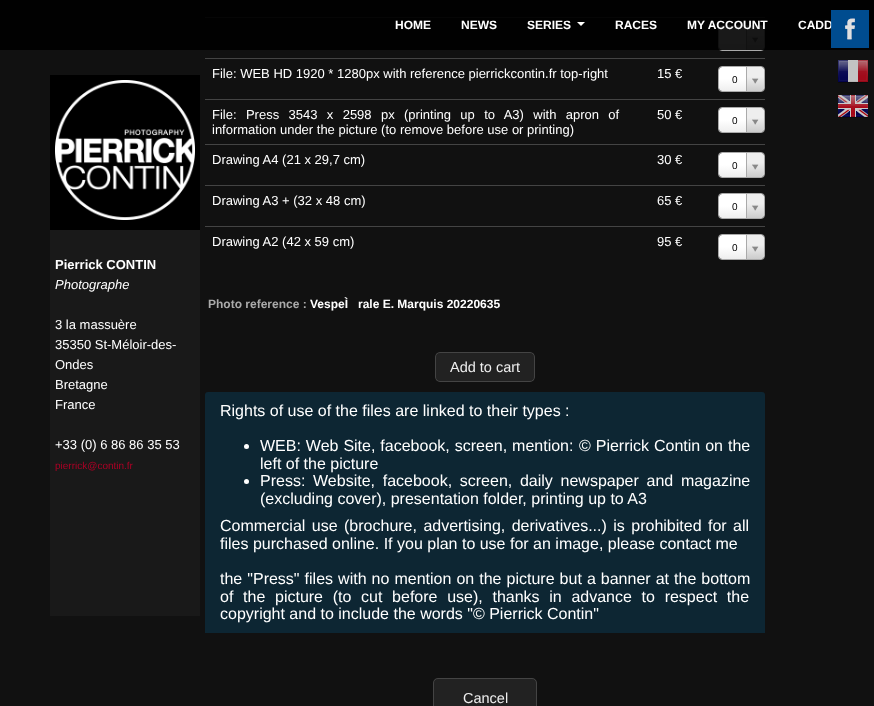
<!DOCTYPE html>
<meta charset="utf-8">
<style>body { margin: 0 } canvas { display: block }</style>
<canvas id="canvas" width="874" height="706"></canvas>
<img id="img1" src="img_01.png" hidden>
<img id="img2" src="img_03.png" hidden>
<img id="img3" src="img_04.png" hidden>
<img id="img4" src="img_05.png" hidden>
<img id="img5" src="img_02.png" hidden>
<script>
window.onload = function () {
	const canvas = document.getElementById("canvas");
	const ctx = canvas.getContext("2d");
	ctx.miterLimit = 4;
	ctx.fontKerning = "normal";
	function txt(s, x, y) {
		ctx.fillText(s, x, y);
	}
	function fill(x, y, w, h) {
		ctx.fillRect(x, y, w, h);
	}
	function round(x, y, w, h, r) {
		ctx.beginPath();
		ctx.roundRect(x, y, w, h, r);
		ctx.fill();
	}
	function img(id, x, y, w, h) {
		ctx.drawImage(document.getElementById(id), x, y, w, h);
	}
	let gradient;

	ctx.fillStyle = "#111111";
	fill(0, 0, 874, 706);
	ctx.fillStyle = "#000000";
	fill(50, 75, 150, 155);
	img("img1", 55, 80, 140, 140);
	ctx.fillStyle = "#191919";
	fill(50, 230, 150, 386);
	ctx.fillStyle = "#444444";
	fill(205, 17, 560, 1);
	gradient = ctx.createLinearGradient(719, 50, 719, 26);
	gradient.addColorStop(0, "#EEEEEE");
	gradient.addColorStop(0.5, "#FFFFFF");
	ctx.fillStyle = gradient;
	round(719, 26, 45, 24, 3);
	ctx.beginPath();
	ctx.roundRect(718.5, 25.5, 46, 25, 3.5);
	ctx.strokeStyle = "#AAAAAA";
	ctx.stroke();
	ctx.save();
	ctx.beginPath();
	ctx.roundRect(719, 26, 45, 24, 3);
	ctx.clip();
	gradient = ctx.createLinearGradient(747, 50, 747, 26);
	gradient.addColorStop(0, "#CCCCCC");
	gradient.addColorStop(0.6, "#EEEEEE");
	ctx.fillStyle = gradient;
	ctx.beginPath();
	ctx.roundRect(746, 26, 18, 24, [0, 4, 4, 0]);
	ctx.fill();
	ctx.restore();
	ctx.fillStyle = "#AAAAAA";
	fill(746, 26, 1, 24);
	img("img2", 752, 37, 7, 6);
	ctx.fillStyle = "rgba(0, 0, 0, 0.9)";
	fill(0, 0, 874, 50);
	ctx.fillStyle = "#FFFFFD";
	ctx.beginPath();
	ctx.moveTo(577, 22);
	ctx.lineTo(585, 22);
	ctx.lineTo(581, 26);
	ctx.closePath();
	ctx.fill();
	ctx.fillStyle = "#444444";
	fill(205, 58, 560, 1);
	gradient = ctx.createLinearGradient(719, 91, 719, 67);
	gradient.addColorStop(0, "#EEEEEE");
	gradient.addColorStop(0.5, "#FFFFFF");
	ctx.fillStyle = gradient;
	round(719, 67, 45, 24, 3);
	ctx.beginPath();
	ctx.roundRect(718.5, 66.5, 46, 25, 3.5);
	ctx.stroke();
	ctx.save();
	ctx.beginPath();
	ctx.roundRect(719, 67, 45, 24, 3);
	ctx.clip();
	gradient = ctx.createLinearGradient(747, 91, 747, 67);
	gradient.addColorStop(0, "#CCCCCC");
	gradient.addColorStop(0.6, "#EEEEEE");
	ctx.fillStyle = gradient;
	ctx.beginPath();
	ctx.roundRect(746, 67, 18, 24, [0, 4, 4, 0]);
	ctx.fill();
	ctx.restore();
	ctx.fillStyle = "#AAAAAA";
	fill(746, 67, 1, 24);
	img("img2", 752, 78, 7, 6);
	ctx.fillStyle = "#444444";
	fill(205, 99, 560, 1);
	gradient = ctx.createLinearGradient(719, 132, 719, 108);
	gradient.addColorStop(0, "#EEEEEE");
	gradient.addColorStop(0.5, "#FFFFFF");
	ctx.fillStyle = gradient;
	round(719, 108, 45, 24, 3);
	ctx.beginPath();
	ctx.roundRect(718.5, 107.5, 46, 25, 3.5);
	ctx.stroke();
	ctx.save();
	ctx.beginPath();
	ctx.roundRect(719, 108, 45, 24, 3);
	ctx.clip();
	gradient = ctx.createLinearGradient(747, 132, 747, 108);
	gradient.addColorStop(0, "#CCCCCC");
	gradient.addColorStop(0.6, "#EEEEEE");
	ctx.fillStyle = gradient;
	ctx.beginPath();
	ctx.roundRect(746, 108, 18, 24, [0, 4, 4, 0]);
	ctx.fill();
	ctx.restore();
	ctx.fillStyle = "#AAAAAA";
	fill(746, 108, 1, 24);
	img("img2", 752, 119, 7, 6);
	ctx.fillStyle = "#444444";
	fill(205, 144, 560, 1);
	gradient = ctx.createLinearGradient(719, 177, 719, 153);
	gradient.addColorStop(0, "#EEEEEE");
	gradient.addColorStop(0.5, "#FFFFFF");
	ctx.fillStyle = gradient;
	round(719, 153, 45, 24, 3);
	ctx.beginPath();
	ctx.roundRect(718.5, 152.5, 46, 25, 3.5);
	ctx.stroke();
	ctx.save();
	ctx.beginPath();
	ctx.roundRect(719, 153, 45, 24, 3);
	ctx.clip();
	gradient = ctx.createLinearGradient(747, 177, 747, 153);
	gradient.addColorStop(0, "#CCCCCC");
	gradient.addColorStop(0.6, "#EEEEEE");
	ctx.fillStyle = gradient;
	ctx.beginPath();
	ctx.roundRect(746, 153, 18, 24, [0, 4, 4, 0]);
	ctx.fill();
	ctx.restore();
	ctx.fillStyle = "#AAAAAA";
	fill(746, 153, 1, 24);
	img("img2", 752, 164, 7, 6);
	ctx.fillStyle = "#444444";
	fill(205, 185, 560, 1);
	gradient = ctx.createLinearGradient(719, 218, 719, 194);
	gradient.addColorStop(0, "#EEEEEE");
	gradient.addColorStop(0.5, "#FFFFFF");
	ctx.fillStyle = gradient;
	round(719, 194, 45, 24, 3);
	ctx.beginPath();
	ctx.roundRect(718.5, 193.5, 46, 25, 3.5);
	ctx.stroke();
	ctx.save();
	ctx.beginPath();
	ctx.roundRect(719, 194, 45, 24, 3);
	ctx.clip();
	gradient = ctx.createLinearGradient(747, 218, 747, 194);
	gradient.addColorStop(0, "#CCCCCC");
	gradient.addColorStop(0.6, "#EEEEEE");
	ctx.fillStyle = gradient;
	ctx.beginPath();
	ctx.roundRect(746, 194, 18, 24, [0, 4, 4, 0]);
	ctx.fill();
	ctx.restore();
	ctx.fillStyle = "#AAAAAA";
	fill(746, 194, 1, 24);
	img("img2", 752, 205, 7, 6);
	ctx.fillStyle = "#444444";
	fill(205, 226, 560, 1);
	gradient = ctx.createLinearGradient(719, 259, 719, 235);
	gradient.addColorStop(0, "#EEEEEE");
	gradient.addColorStop(0.5, "#FFFFFF");
	ctx.fillStyle = gradient;
	round(719, 235, 45, 24, 3);
	ctx.beginPath();
	ctx.roundRect(718.5, 234.5, 46, 25, 3.5);
	ctx.stroke();
	ctx.save();
	ctx.beginPath();
	ctx.roundRect(719, 235, 45, 24, 3);
	ctx.clip();
	gradient = ctx.createLinearGradient(747, 259, 747, 235);
	gradient.addColorStop(0, "#CCCCCC");
	gradient.addColorStop(0.6, "#EEEEEE");
	ctx.fillStyle = gradient;
	ctx.beginPath();
	ctx.roundRect(746, 235, 18, 24, [0, 4, 4, 0]);
	ctx.fill();
	ctx.restore();
	ctx.fillStyle = "#AAAAAA";
	fill(746, 235, 1, 24);
	img("img2", 752, 246, 7, 6);
	ctx.fillStyle = "#222222";
	fill(436, 353, 98, 28);
	ctx.beginPath();
	ctx.roundRect(435.5, 352.5, 99, 29, 4.5);
	ctx.strokeStyle = "#444444";
	ctx.stroke();
	ctx.fillStyle = "#0D2633";
	ctx.beginPath();
	ctx.roundRect(205, 392, 560, 241, [3, 3, 0, 0]);
	ctx.fill();
	ctx.fillStyle = "#FFFFFF";
	ctx.beginPath();
	ctx.arc(246.5, 446.5, 2.5, 0, Math.PI * 2);
	ctx.fill();
	ctx.beginPath();
	ctx.arc(246.5, 481.5, 2.5, 0, Math.PI * 2);
	ctx.fill();
	ctx.fillStyle = "#222222";
	round(433, 678, 104, 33, 5);
	ctx.fillStyle = "#1E1E1E";
	fill(434, 679, 1, 1);
	ctx.beginPath();
	ctx.roundRect(433.5, 678.5, 103, 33, 4.5);
	ctx.stroke();
	img("img3", 838, 60, 30, 23);
	img("img4", 838, 95, 30, 23);
	ctx.font = "bold 13px Liberation Sans";
	ctx.fillStyle = "#FFFFFF";
	txt("Pierrick CONTIN", 55, 269);
	ctx.font = "italic 13px Liberation Sans";
	txt("Photographe", 55, 289);
	ctx.font = "13px Liberation Sans";
	txt("3 la massuère", 55, 329);
	txt("35350 St-Méloir-des-", 55, 349);
	txt("Ondes", 55, 369);
	txt("Bretagne", 55, 389);
	txt("France", 55, 409);
	txt("+33 (0) 6 86 86 35 53", 55, 449);
	ctx.font = "10px Liberation Sans";
	ctx.fillStyle = "#AC0125";
	txt("pierrick@contin.fr", 55, 469);
	ctx.font = "bold 12px Liberation Sans";
	ctx.fillStyle = "#FFFFFF";
	txt("HOME", 395, 29);
	txt("NEWS", 461, 29);
	txt("SERIES", 527, 29);
	txt("RACES", 615, 29);
	txt("MY ACCOUNT", 687, 29);
	txt("CADD", 798, 29);
	img("img5", 831, 10, 38, 38);
	ctx.font = "13px Liberation Sans";
	txt("File: WEB HD 1920 * 1280px with reference pierrickcontin.fr top-right", 212, 78);
	txt("15 €", 657, 78);
	ctx.font = "10px Liberation Sans";
	ctx.fillStyle = "#000000";
	txt("0", 732, 83);
	ctx.wordSpacing = "5.75px";
	ctx.font = "13px Liberation Sans";
	ctx.fillStyle = "#FFFFFF";
	txt("File: Press 3543 x 2598 px (printing up to A3) with apron of", 212, 119);
	ctx.wordSpacing = "0px";
	txt("information under the picture (to remove before use or printing)", 212, 134);
	txt("50 €", 657, 119);
	ctx.font = "10px Liberation Sans";
	ctx.fillStyle = "#000000";
	txt("0", 732, 124);
	ctx.font = "13px Liberation Sans";
	ctx.fillStyle = "#FFFFFF";
	txt("Drawing A4 (21 x 29,7 cm)", 212, 164);
	txt("30 €", 657, 164);
	ctx.font = "10px Liberation Sans";
	ctx.fillStyle = "#000000";
	txt("0", 732, 169);
	ctx.font = "13px Liberation Sans";
	ctx.fillStyle = "#FFFFFF";
	txt("Drawing A3 + (32 x 48 cm)", 212, 205);
	txt("65 €", 657, 205);
	ctx.font = "10px Liberation Sans";
	ctx.fillStyle = "#000000";
	txt("0", 732, 210);
	ctx.font = "13px Liberation Sans";
	ctx.fillStyle = "#FFFFFF";
	txt("Drawing A2 (42 x 59 cm)", 212, 246);
	txt("95 €", 657, 246);
	ctx.font = "10px Liberation Sans";
	ctx.fillStyle = "#000000";
	txt("0", 732, 251);
	ctx.font = "bold 12px Liberation Sans";
	ctx.fillStyle = "#AAAAAA";
	txt("Photo reference :", 208, 308);
	ctx.fillStyle = "#FFFFFF";
	txt("VespeÌ", 310, 308);
	txt("rale E. Marquis 20220635", 358, 308);
	ctx.font = "14.5px Liberation Sans";
	ctx.fillStyle = "#EEEEEE";
	txt("Add to cart", 450, 372);
	ctx.font = "16px Liberation Sans";
	ctx.fillStyle = "#FFFFFF";
	txt("Rights of use of the files are linked to their types :", 220, 416);
	ctx.wordSpacing = "0.5px";
	txt("WEB: Web Site, facebook, screen, mention:", 260, 451);
	txt("© Pierrick Contin on the", 579, 451);
	ctx.wordSpacing = "0px";
	txt("left of the picture", 260, 469);
	ctx.wordSpacing = "3.25px";
	txt("Press: Website, facebook, screen, daily newspaper and magazine", 260, 486);
	ctx.wordSpacing = "0px";
	txt("(excluding cover), presentation folder, printing up to A3", 260, 504);
	ctx.wordSpacing = "2px";
	txt("Commercial use (brochure, advertising, derivatives...) is prohibited for all", 220, 531);
	ctx.wordSpacing = "0px";
	txt("files purchased online. If you plan to use for an image, please contact me", 220, 549);
	ctx.wordSpacing = "0.6px";
	txt("the \"Press\" files with no mention on the picture but a banner at the bottom", 220, 584);
	ctx.wordSpacing = "5.25px";
	txt("of the picture (to cut before use), thanks in advance to respect the", 220, 602);
	ctx.wordSpacing = "0px";
	txt("copyright and to include the words \"© Pierrick Contin\"", 220, 619);
	ctx.font = "14.5px Liberation Sans";
	ctx.fillStyle = "#EEEEEE";
	txt("Cancel", 463, 703);
};
</script>
